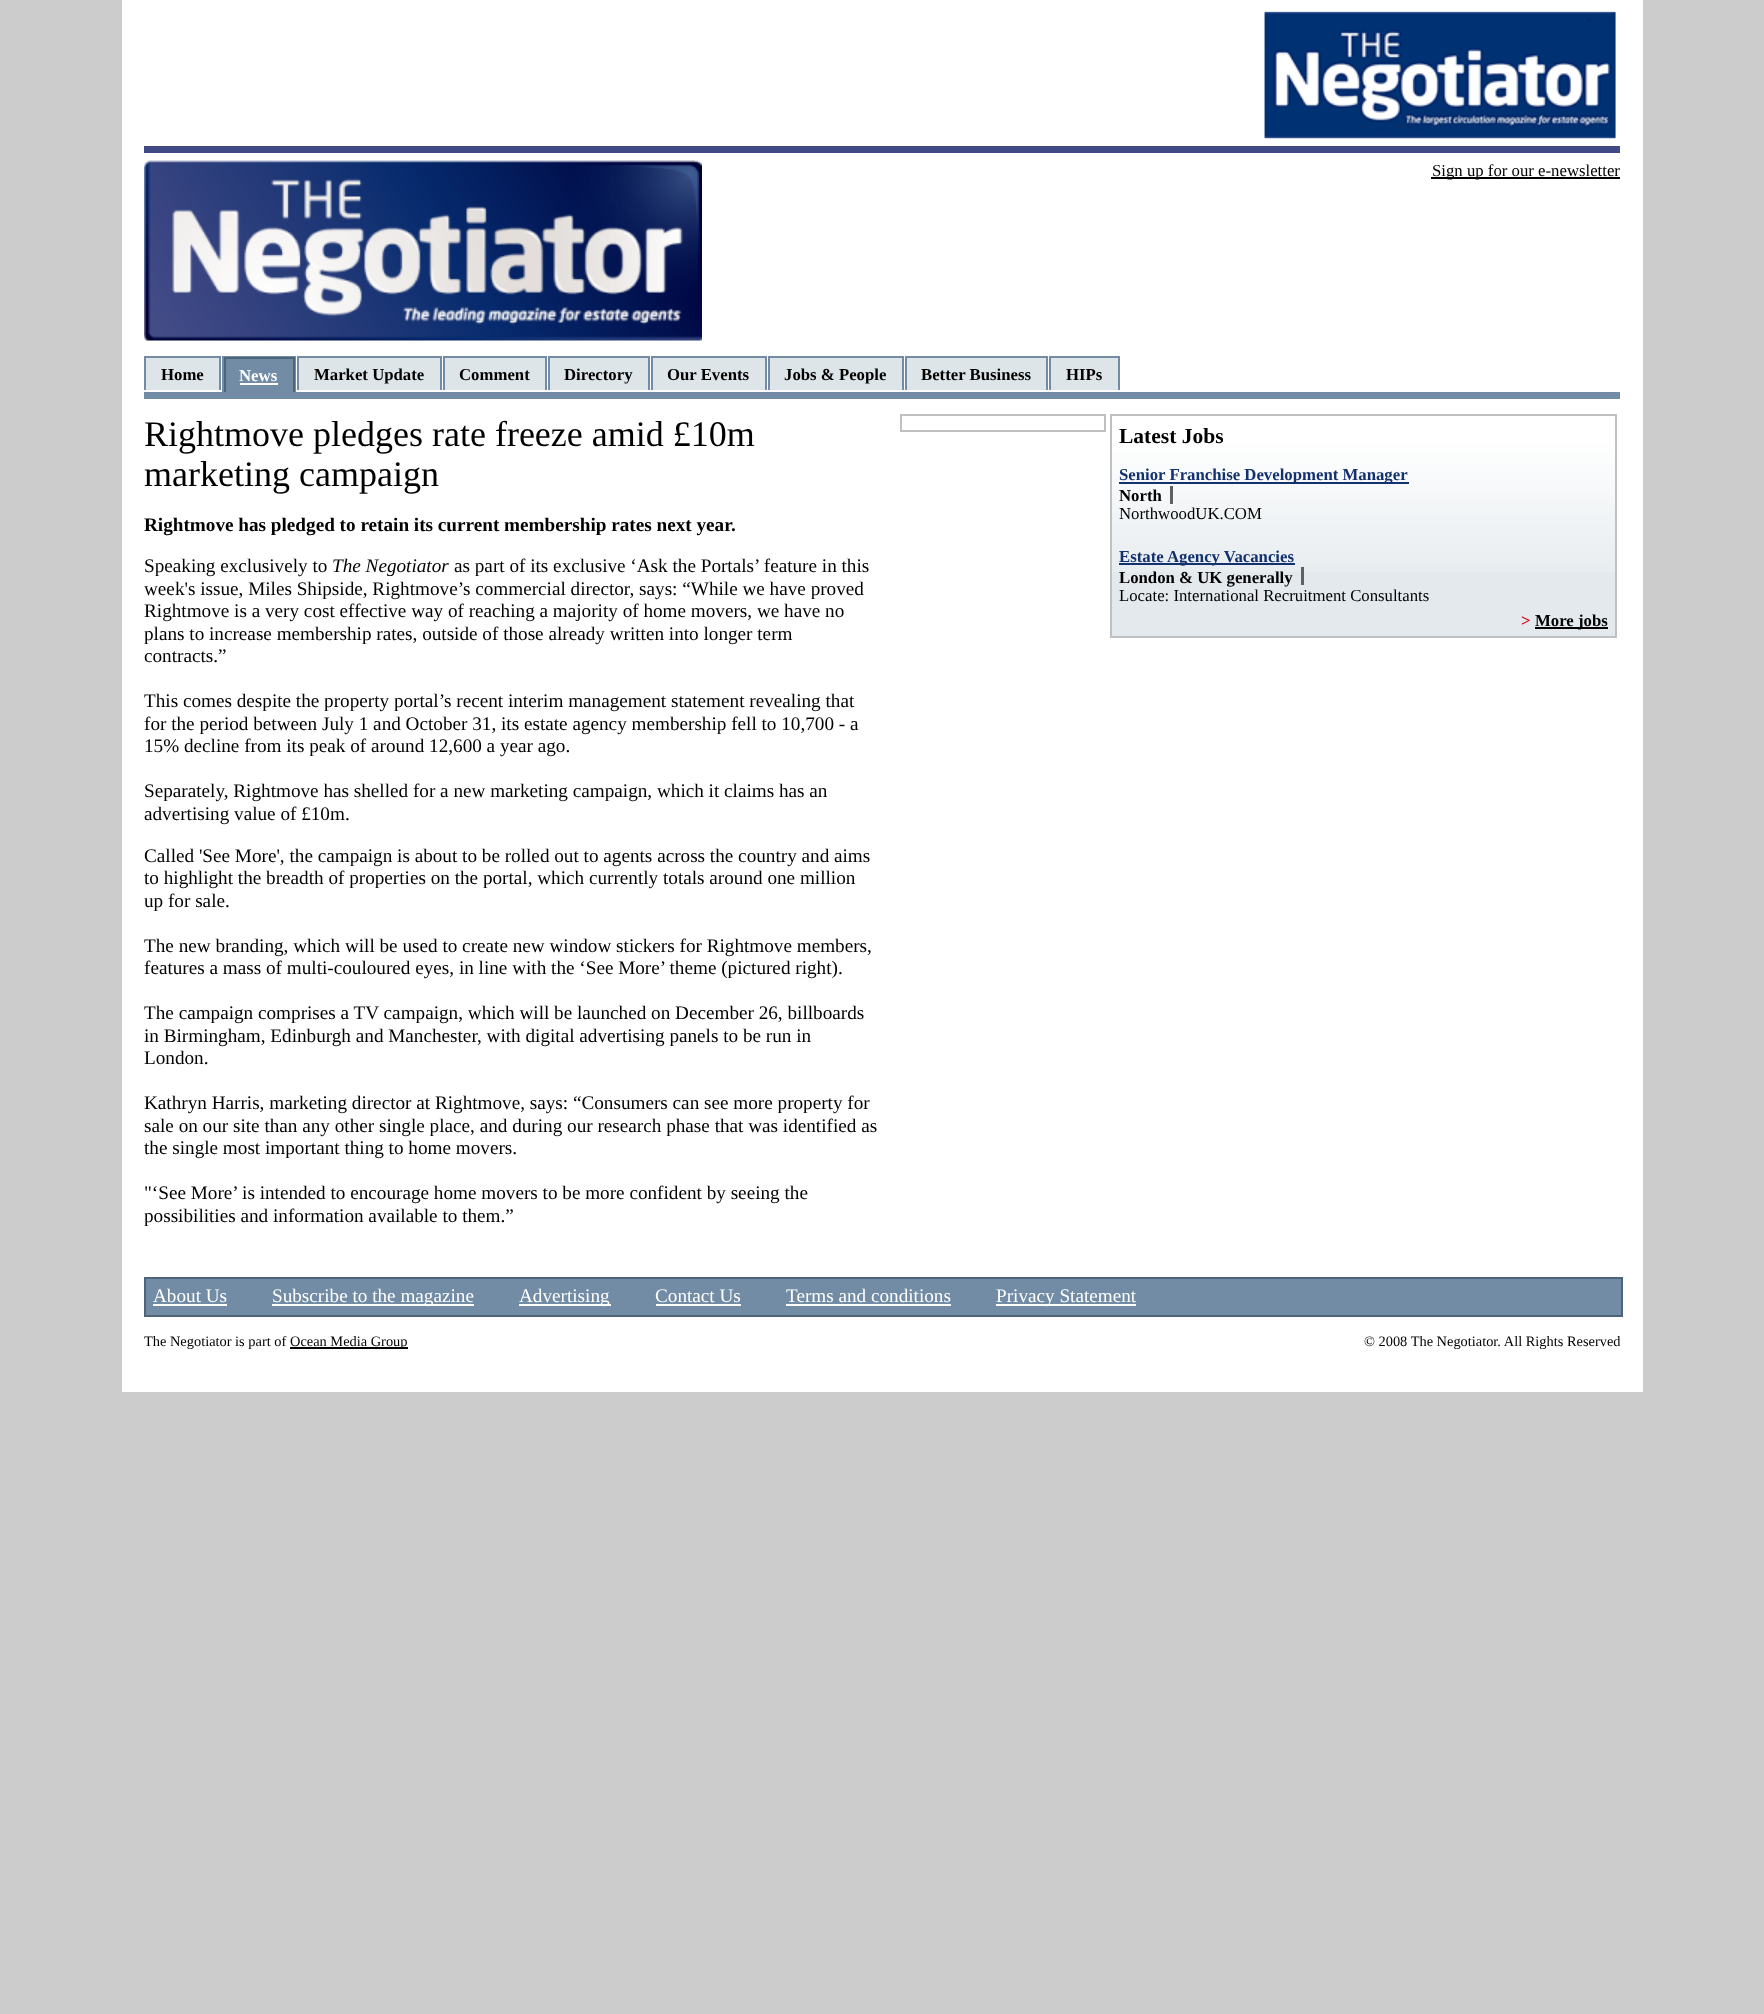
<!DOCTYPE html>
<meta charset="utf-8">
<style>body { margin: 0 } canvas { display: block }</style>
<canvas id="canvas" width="1764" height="2014"></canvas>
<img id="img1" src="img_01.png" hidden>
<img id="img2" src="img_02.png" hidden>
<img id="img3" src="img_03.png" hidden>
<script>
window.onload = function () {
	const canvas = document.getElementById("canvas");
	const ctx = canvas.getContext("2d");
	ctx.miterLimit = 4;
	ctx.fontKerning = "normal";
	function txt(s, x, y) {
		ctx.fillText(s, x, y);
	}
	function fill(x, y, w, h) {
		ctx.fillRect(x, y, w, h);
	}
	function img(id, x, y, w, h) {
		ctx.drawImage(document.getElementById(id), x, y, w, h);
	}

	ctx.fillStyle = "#CCCCCC";
	fill(0, 0, 1764, 2014);
	ctx.fillStyle = "#FFFFFF";
	fill(122, 0, 1521, 1392);
	img("img1", 1264, 11, 353, 128);
	ctx.fillStyle = "#414A84";
	fill(144, 146, 1476, 7);
	img("img2", 144, 160, 558, 181);
	ctx.fillStyle = "#000000";
	fill(1431, 177, 189, 2);
	ctx.fillStyle = "#718CA4";
	fill(144, 392, 1476, 7);
	ctx.fillStyle = "#DEE5E9";
	fill(146, 358, 73, 32);
	ctx.fillStyle = "#718CA4";
	fill(144, 356, 77, 2);
	fill(219, 356, 2, 34);
	fill(144, 356, 2, 34);
	fill(222, 356, 74, 1);
	fill(294, 356, 2, 36);
	fill(222, 356, 2, 36);
	fill(226, 359, 67, 33);
	ctx.fillStyle = "#4D6479";
	fill(224, 357, 70, 2);
	fill(293, 357, 2, 35);
	fill(224, 357, 2, 35);
	ctx.fillStyle = "#FFFFFF";
	fill(240, 383, 38, 2);
	ctx.fillStyle = "#DEE5E9";
	fill(299, 358, 141, 32);
	ctx.fillStyle = "#718CA4";
	fill(297, 356, 144, 2);
	fill(440, 356, 2, 34);
	fill(297, 356, 2, 34);
	ctx.fillStyle = "#DEE5E9";
	fill(445, 358, 100, 32);
	ctx.fillStyle = "#718CA4";
	fill(443, 356, 103, 2);
	fill(545, 356, 2, 34);
	fill(443, 356, 2, 34);
	ctx.fillStyle = "#DEE5E9";
	fill(550, 358, 98, 32);
	ctx.fillStyle = "#718CA4";
	fill(548, 356, 102, 2);
	fill(648, 356, 2, 34);
	fill(548, 356, 2, 34);
	ctx.fillStyle = "#DEE5E9";
	fill(653, 358, 112, 32);
	ctx.fillStyle = "#718CA4";
	fill(651, 356, 116, 2);
	fill(765, 356, 2, 34);
	fill(651, 356, 2, 34);
	ctx.fillStyle = "#DEE5E9";
	fill(770, 358, 132, 32);
	ctx.fillStyle = "#718CA4";
	fill(768, 356, 135, 2);
	fill(902, 356, 2, 34);
	fill(768, 356, 2, 34);
	ctx.fillStyle = "#DEE5E9";
	fill(907, 358, 139, 32);
	ctx.fillStyle = "#718CA4";
	fill(905, 356, 142, 2);
	fill(1046, 356, 2, 34);
	fill(905, 356, 2, 34);
	ctx.fillStyle = "#DEE5E9";
	fill(1051, 358, 67, 32);
	ctx.fillStyle = "#718CA4";
	fill(1049, 356, 70, 2);
	fill(1118, 356, 2, 34);
	fill(1049, 356, 2, 34);
	ctx.strokeStyle = "#C0C0C0";
	ctx.lineWidth = 2;
	ctx.strokeRect(901, 415, 204, 16);
	ctx.fillStyle = "#E3E9ED";
	fill(1112, 572, 503, 64);
	img("img3", 1112, 416, 503, 156);
	ctx.strokeRect(1111, 415, 505, 222);
	ctx.fillStyle = "#13316F";
	fill(1119, 482, 290, 2);
	ctx.fillStyle = "#606060";
	fill(1170, 486, 3, 18);
	ctx.fillStyle = "#13316F";
	fill(1119, 563, 176, 2);
	ctx.fillStyle = "#606060";
	fill(1301, 567, 3, 18);
	ctx.fillStyle = "#000000";
	fill(1535, 627, 73, 2);
	ctx.fillStyle = "#718CA4";
	ctx.beginPath();
	ctx.rect(145, 1278, 1477, 38);
	ctx.fill();
	ctx.strokeStyle = "#4D6479";
	ctx.stroke();
	ctx.fillStyle = "#FFFFFF";
	fill(153, 1304, 74, 2);
	fill(272, 1304, 202, 2);
	fill(519, 1304, 92, 2);
	fill(656, 1304, 85, 2);
	fill(786, 1304, 165, 2);
	fill(996, 1304, 140, 2);
	ctx.fillStyle = "#000000";
	fill(290, 1347, 118, 2);
	ctx.font = "16.75px Liberation Serif";
	txt("Sign up for our e-newsletter", 1432, 176);
	ctx.font = "bold 16.75px Liberation Serif";
	txt("Home", 161, 380);
	ctx.fillStyle = "#FFFFFF";
	txt("News", 239, 381);
	ctx.fillStyle = "#000000";
	txt("Market Update", 314, 380);
	txt("Comment", 459, 380);
	txt("Directory", 564, 380);
	txt("Our Events", 667, 380);
	txt("Jobs & People", 784, 380);
	txt("Better Business", 921, 380);
	txt("HIPs", 1066, 380);
	ctx.font = "36px Liberation Serif";
	txt("Rightmove pledges rate freeze amid £10m", 144, 446);
	txt("marketing campaign", 144, 486);
	ctx.font = "bold 19.2px Liberation Serif";
	txt("Rightmove has pledged to retain its current membership rates next year.", 144, 531);
	ctx.font = "19.2px Liberation Serif";
	txt("Speaking exclusively to", 144, 572);
	ctx.font = "italic 19.2px Liberation Serif";
	txt("The Negotiator", 332, 572);
	ctx.font = "19.2px Liberation Serif";
	txt("as part of its exclusive ‘Ask the Portals’ feature in this", 454, 572);
	txt("week's issue, Miles Shipside, Rightmove’s commercial director, says: “While we have proved", 144, 595);
	txt("Rightmove is a very cost effective way of reaching a majority of home movers, we have no", 144, 617);
	txt("plans to increase membership rates, outside of those already written into longer term", 144, 640);
	txt("contracts.”", 144, 662);
	txt("This comes despite the property portal’s recent interim management statement revealing that", 144, 707);
	txt("for the period between July 1 and October 31, its estate agency membership fell to 10,700 - a", 144, 730);
	txt("15% decline from its peak of around 12,600 a year ago.", 144, 752);
	txt("Separately, Rightmove has shelled for a new marketing campaign, which it claims has an", 144, 797);
	txt("advertising value of £10m.", 144, 820);
	txt("Called 'See More', the campaign is about to be rolled out to agents across the country and aims", 144, 862);
	txt("to highlight the breadth of properties on the portal, which currently totals around one million", 144, 884);
	txt("up for sale.", 144, 907);
	txt("The new branding, which will be used to create new window stickers for Rightmove members,", 144, 952);
	txt("features a mass of multi-couloured eyes, in line with the ‘See More’ theme (pictured right).", 144, 974);
	txt("The campaign comprises a TV campaign, which will be launched on December 26, billboards", 144, 1019);
	txt("in Birmingham, Edinburgh and Manchester, with digital advertising panels to be run in", 144, 1042);
	txt("London.", 144, 1064);
	txt("Kathryn Harris, marketing director at Rightmove, says: “Consumers can see more property for", 144, 1109);
	txt("sale on our site than any other single place, and during our research phase that was identified as", 144, 1132);
	txt("the single most important thing to home movers.", 144, 1154);
	txt("\"‘See More’ is intended to encourage home movers to be more confident by seeing the", 144, 1199);
	txt("possibilities and information available to them.”", 144, 1222);
	ctx.font = "bold 21.5px Liberation Serif";
	txt("Latest Jobs", 1119, 443);
	ctx.font = "bold 16.75px Liberation Serif";
	ctx.fillStyle = "#13316F";
	txt("Senior Franchise Development Manager", 1119, 480);
	ctx.fillStyle = "#000000";
	txt("North", 1119, 501);
	ctx.font = "16.75px Liberation Serif";
	txt("NorthwoodUK.COM", 1119, 519);
	ctx.font = "bold 16.75px Liberation Serif";
	ctx.fillStyle = "#13316F";
	txt("Estate Agency Vacancies", 1119, 562);
	ctx.fillStyle = "#000000";
	txt("London & UK generally", 1119, 583);
	ctx.font = "16.75px Liberation Serif";
	txt("Locate: International Recruitment Consultants", 1119, 601);
	ctx.font = "bold 16.75px Liberation Serif";
	ctx.fillStyle = "#D10019";
	txt(">", 1521, 626);
	ctx.fillStyle = "#000000";
	txt("More jobs", 1535, 626);
	ctx.font = "19.2px Liberation Serif";
	ctx.fillStyle = "#FFFFFF";
	txt("About Us", 153, 1302);
	txt("Subscribe to the magazine", 272, 1302);
	txt("Advertising", 519, 1302);
	txt("Contact Us", 655, 1302);
	txt("Terms and conditions", 786, 1302);
	txt("Privacy Statement", 996, 1302);
	ctx.font = "14.4px Liberation Serif";
	ctx.fillStyle = "#000000";
	txt("The Negotiator is part of", 144, 1346);
	txt("Ocean Media Group", 290, 1346);
	txt("© 2008 The Negotiator. All Rights Reserved", 1364, 1346);
};
</script>
